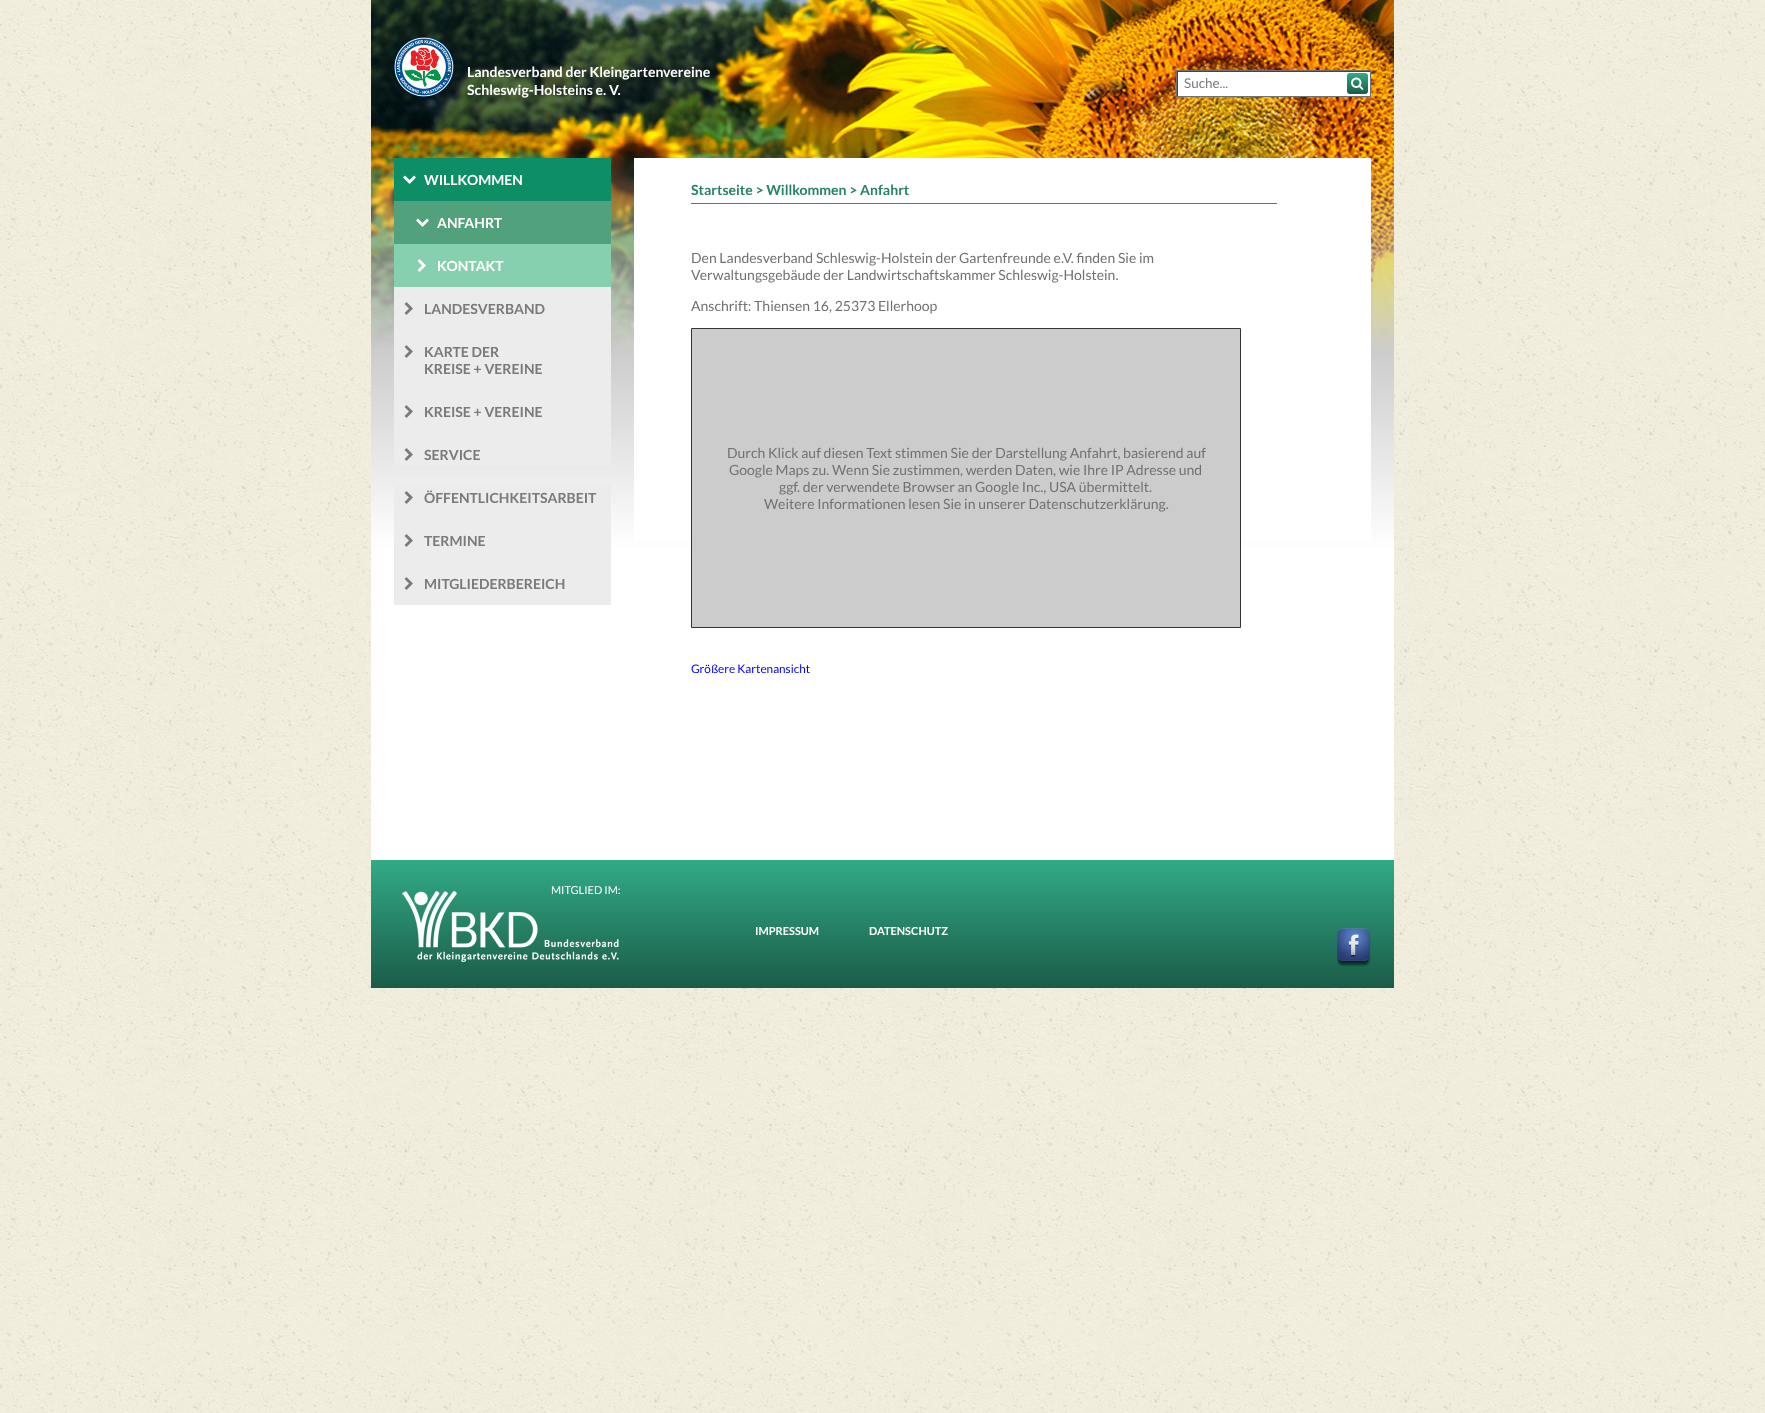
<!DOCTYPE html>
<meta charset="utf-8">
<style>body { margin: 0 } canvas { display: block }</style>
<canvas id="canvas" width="1765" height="1413"></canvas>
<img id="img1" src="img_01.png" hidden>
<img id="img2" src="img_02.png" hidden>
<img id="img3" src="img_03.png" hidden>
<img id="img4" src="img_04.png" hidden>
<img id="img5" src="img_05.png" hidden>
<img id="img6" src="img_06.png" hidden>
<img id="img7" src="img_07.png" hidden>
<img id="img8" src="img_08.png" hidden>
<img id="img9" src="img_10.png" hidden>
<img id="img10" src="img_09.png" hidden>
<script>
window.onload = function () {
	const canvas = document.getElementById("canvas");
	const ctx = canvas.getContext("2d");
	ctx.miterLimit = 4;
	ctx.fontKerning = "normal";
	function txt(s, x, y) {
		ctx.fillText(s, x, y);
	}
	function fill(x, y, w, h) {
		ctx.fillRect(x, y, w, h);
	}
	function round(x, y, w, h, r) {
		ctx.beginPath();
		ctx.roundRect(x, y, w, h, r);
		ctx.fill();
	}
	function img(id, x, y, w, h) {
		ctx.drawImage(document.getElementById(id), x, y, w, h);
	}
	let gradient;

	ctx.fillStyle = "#FFFFFF";
	fill(0, 0, 1765, 1413);
	img("img1", 0, 0, 1765, 1413);
	fill(371, 550, 1023, 310);
	img("img2", 371, 0, 1023, 349);
	img("img3", 394, 37, 60, 60);
	fill(1178, 72, 192, 24);
	ctx.save();
	ctx.beginPath();
	ctx.rect(1177, 71, 193, 25);
	ctx.clip();
	ctx.fillStyle = "#444444";
	ctx.beginPath();
	ctx.moveTo(1078, -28);
	ctx.lineTo(1469, -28);
	ctx.lineTo(1469, 195);
	ctx.lineTo(1078, 195);
	ctx.closePath();
	ctx.moveTo(1178, 72);
	ctx.lineTo(1371, 72);
	ctx.lineTo(1371, 97);
	ctx.lineTo(1178, 97);
	ctx.closePath();
	ctx.fill("evenodd");
	ctx.restore();
	ctx.strokeStyle = "#717171";
	ctx.strokeRect(1176.5, 70.5, 194, 26);
	gradient = ctx.createLinearGradient(1358, 73, 1358, 94);
	gradient.addColorStop(0, "#31AB86");
	gradient.addColorStop(1, "#1B5B48");
	ctx.fillStyle = gradient;
	round(1347, 73, 21, 21, 3);
	img("img4", 1351, 77, 13, 13);
	gradient = ctx.createLinearGradient(883, 150, 883, 550);
	gradient.addColorStop(0, "rgba(204, 204, 204, 0)");
	gradient.addColorStop(0.5, "#CCCCCC");
	gradient.addColorStop(1, "#FFFFFF");
	ctx.fillStyle = gradient;
	fill(371, 154, 1023, 396);
	ctx.fillStyle = "#0D8E66";
	fill(394, 158, 217, 43);
	img("img5", 403, 175, 13, 9);
	ctx.fillStyle = "#50A17C";
	fill(394, 201, 217, 43);
	img("img6", 416, 218, 13, 9);
	ctx.fillStyle = "#87D0AF";
	fill(394, 244, 217, 43);
	img("img7", 417, 259, 9, 13);
	ctx.fillStyle = "#ECECEC";
	fill(394, 287, 217, 179);
	img("img8", 404, 302, 9, 13);
	img("img8", 404, 345, 9, 13);
	img("img8", 404, 405, 9, 13);
	img("img8", 404, 448, 9, 13);
	fill(394, 485, 217, 120);
	img("img8", 404, 491, 9, 13);
	img("img8", 404, 534, 9, 13);
	img("img8", 404, 577, 9, 13);
	ctx.fillStyle = "#FFFFFF";
	fill(634, 158, 737, 382);
	ctx.fillStyle = "#717171";
	fill(691, 203, 586, 1);
	ctx.fillStyle = "#CCCCCC";
	ctx.beginPath();
	ctx.rect(691.5, 328.5, 549, 299);
	ctx.fill();
	ctx.strokeStyle = "#333333";
	ctx.stroke();
	gradient = ctx.createLinearGradient(883, 860, 883, 988);
	gradient.addColorStop(0, "#31AB86");
	gradient.addColorStop(1, "#1B5B48");
	ctx.fillStyle = gradient;
	fill(371, 860, 1023, 128);
	img("img9", 1337, 928, 34, 39);
	ctx.font = "bold 14px Lato";
	ctx.fillStyle = "#FFFFFF";
	txt("Landesverband der Kleingartenvereine", 467, 77);
	txt("Schleswig-Holsteins e. V.", 467, 95);
	ctx.font = "13.5px Lato";
	ctx.fillStyle = "#7A7A7A";
	txt("Suche...", 1184, 88);
	ctx.font = "bold 14px Lato";
	ctx.fillStyle = "#FFFFFF";
	txt("WILLKOMMEN", 424, 185);
	txt("ANFAHRT", 437, 228);
	txt("KONTAKT", 437, 271);
	ctx.fillStyle = "#7A7A7A";
	txt("LANDESVERBAND", 424, 314);
	txt("KARTE DER", 424, 357);
	txt("KREISE + VEREINE", 424, 374);
	txt("KREISE + VEREINE", 424, 417);
	txt("SERVICE", 424, 460);
	txt("ÖFFENTLICHKEITSARBEIT", 424, 503);
	txt("TERMINE", 424, 546);
	txt("MITGLIEDERBEREICH", 424, 589);
	ctx.fillStyle = "#268367";
	txt("Startseite > Willkommen > Anfahrt", 691, 195);
	ctx.font = "14px Lato";
	ctx.fillStyle = "#717171";
	txt("Den Landesverband Schleswig-Holstein der Gartenfreunde e.V. finden Sie im", 691, 263);
	txt("Verwaltungsgebäude der Landwirtschaftskammer Schleswig-Holstein.", 691, 280);
	txt("Anschrift: Thiensen 16, 25373 Ellerhoop", 691, 311);
	txt("Durch Klick auf diesen Text stimmen Sie der Darstellung Anfahrt, basierend auf", 727, 458);
	txt("Google Maps zu. Wenn Sie zustimmen, werden Daten, wie Ihre IP Adresse und", 729, 475);
	txt("ggf. der verwendete Browser an Google Inc., USA übermittelt.", 779, 492);
	txt("Weitere Informationen lesen Sie in unserer Datenschutzerklärung.", 764, 509);
	ctx.font = "11.75px Lato";
	ctx.fillStyle = "#0000FF";
	txt("Größere Kartenansicht", 691, 673);
	ctx.font = "11px Lato";
	ctx.fillStyle = "#FFFFFF";
	txt("MITGLIED IM:", 551, 894);
	img("img10", 402, 891, 217, 71);
	ctx.font = "bold 11px Lato";
	txt("IMPRESSUM", 755, 935);
	txt("DATENSCHUTZ", 869, 935);
};
</script>
